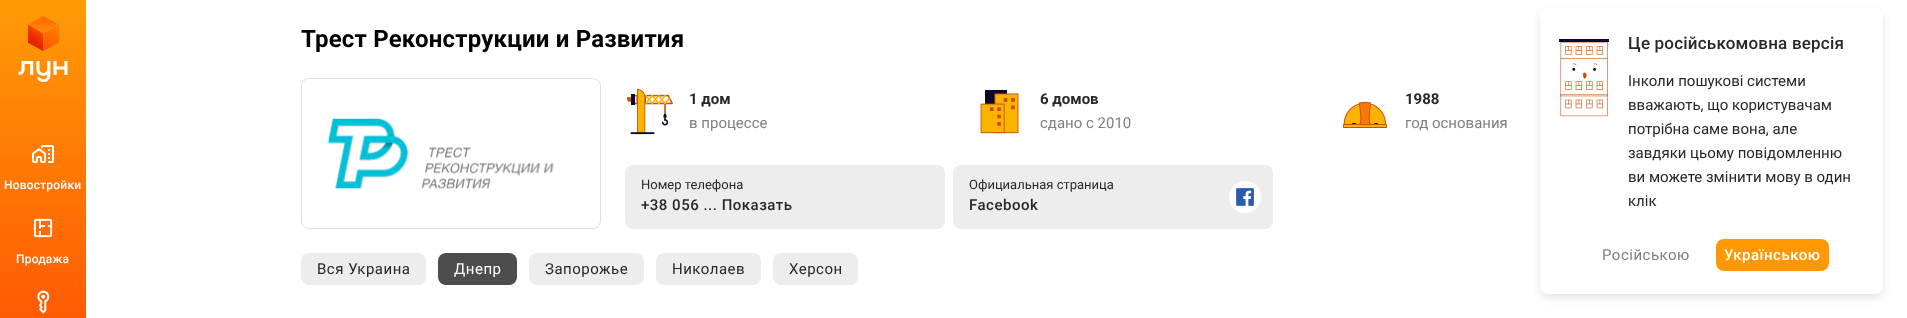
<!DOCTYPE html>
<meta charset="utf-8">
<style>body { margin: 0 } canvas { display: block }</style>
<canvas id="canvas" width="1907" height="318"></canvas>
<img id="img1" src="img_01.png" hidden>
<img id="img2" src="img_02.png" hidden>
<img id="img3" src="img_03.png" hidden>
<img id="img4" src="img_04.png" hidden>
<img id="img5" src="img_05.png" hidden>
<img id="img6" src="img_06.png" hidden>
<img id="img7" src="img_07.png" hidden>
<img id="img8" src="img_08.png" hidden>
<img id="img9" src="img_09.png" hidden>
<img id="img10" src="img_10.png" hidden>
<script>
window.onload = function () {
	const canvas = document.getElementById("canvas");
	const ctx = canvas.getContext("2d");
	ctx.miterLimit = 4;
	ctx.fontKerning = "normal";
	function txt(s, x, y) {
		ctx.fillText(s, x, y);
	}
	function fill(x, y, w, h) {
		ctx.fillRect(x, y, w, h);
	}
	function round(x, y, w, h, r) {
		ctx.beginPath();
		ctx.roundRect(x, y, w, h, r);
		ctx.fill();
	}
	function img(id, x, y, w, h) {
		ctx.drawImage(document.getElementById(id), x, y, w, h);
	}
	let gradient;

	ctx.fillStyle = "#FFFFFF";
	fill(0, 0, 1907, 318);
	gradient = ctx.createLinearGradient(43, 0, 43, 318);
	gradient.addColorStop(0, "#FF9B06");
	gradient.addColorStop(1, "#FF5A03");
	ctx.fillStyle = gradient;
	fill(0, 0, 86, 318);
	img("img1", 18, 16, 50, 66);
	img("img2", 32, 145, 22, 18);
	img("img3", 33, 218, 20, 20);
	img("img4", 37, 290, 13, 24);
	ctx.beginPath();
	ctx.roundRect(301.5, 78.5, 299, 150, 7.5);
	ctx.strokeStyle = "#E0E0E0";
	ctx.stroke();
	img("img5", 327, 118, 227, 71);
	img("img6", 626, 88, 47, 47);
	img("img7", 980, 90, 39, 44);
	img("img8", 1343, 102, 44, 26);
	ctx.fillStyle = "#EDEDED";
	round(625, 165, 320, 64, 8);
	round(953, 165, 320, 64, 8);
	ctx.fillStyle = "#FFFFFF";
	ctx.beginPath();
	ctx.arc(1245, 197, 16, 0, Math.PI * 2);
	ctx.fill();
	img("img9", 1236, 188, 18, 18);
	ctx.fillStyle = "#EDEDED";
	round(301, 253, 125, 32, 8);
	ctx.fillStyle = "#4D4D4D";
	round(438, 253, 79, 32, 8);
	ctx.fillStyle = "#EDEDED";
	round(529, 253, 115, 32, 8);
	round(656, 253, 105, 32, 8);
	round(773, 253, 85, 32, 8);
	ctx.fillStyle = "rgba(0, 0, 0, 0.1)";
	ctx.filter = "blur(4px)";
	ctx.beginPath();
	ctx.roundRect(1540, 12, 343, 286, 8);
	ctx.fill();
	ctx.filter = "none";
	ctx.fillStyle = "#FFFFFF";
	round(1540, 8, 343, 286, 8);
	img("img10", 1559, 39, 50, 78);
	ctx.fillStyle = "#FF9800";
	round(1716, 239, 113, 32, 8);
	ctx.letterSpacing = "0.2px";
	ctx.font = "500 12px Roboto";
	ctx.fillStyle = "#FFFFFF";
	txt("Новостройки", 4, 189);
	txt("Продажа", 16, 263);
	ctx.font = "bold 24px Roboto";
	ctx.fillStyle = "#000000";
	txt("Трест Реконструкции и Развития", 301, 47);
	ctx.letterSpacing = "0px";
	ctx.font = "bold 15px Roboto";
	ctx.fillStyle = "#282828";
	txt("1 дом", 689, 104);
	ctx.font = "15px Roboto";
	ctx.fillStyle = "#808080";
	txt("в процессе", 689, 128);
	ctx.font = "bold 15px Roboto";
	ctx.fillStyle = "#282828";
	txt("6 домов", 1040, 104);
	ctx.font = "15px Roboto";
	ctx.fillStyle = "#808080";
	txt("сдано с 2010", 1040, 128);
	ctx.font = "bold 15px Roboto";
	ctx.fillStyle = "#282828";
	txt("1988", 1405, 104);
	ctx.font = "15px Roboto";
	ctx.fillStyle = "#808080";
	txt("год основания", 1405, 128);
	ctx.font = "13px Roboto";
	ctx.fillStyle = "#282828";
	txt("Номер телефона", 641, 189);
	ctx.letterSpacing = "0.5px";
	ctx.font = "500 15px Roboto";
	txt("+38 056 ... Показать", 641, 210);
	ctx.letterSpacing = "0px";
	ctx.font = "13px Roboto";
	txt("Официальная страница", 969, 189);
	ctx.letterSpacing = "0.5px";
	ctx.font = "500 15px Roboto";
	txt("Facebook", 969, 210);
	ctx.font = "15px Roboto";
	txt("Вся Украина", 317, 274);
	ctx.fillStyle = "#FFFFFF";
	txt("Днепр", 454, 274);
	ctx.fillStyle = "#282828";
	txt("Запорожье", 545, 274);
	txt("Николаев", 672, 274);
	txt("Херсон", 789, 274);
	ctx.letterSpacing = "0.2px";
	ctx.font = "500 17px Roboto";
	txt("Це російськомовна версія", 1628, 49);
	ctx.letterSpacing = "0px";
	ctx.font = "15px Roboto";
	txt("Інколи пошукові системи", 1628, 86);
	txt("вважають, що користувачам", 1628, 110);
	txt("потрібна саме вона, але", 1628, 134);
	txt("завдяки цьому повідомленню", 1628, 158);
	txt("ви можете змінити мову в один", 1628, 182);
	txt("клік", 1628, 206);
	ctx.letterSpacing = "0.5px";
	ctx.fillStyle = "#808080";
	txt("Російською", 1602, 260);
	ctx.font = "500 15px Roboto";
	ctx.fillStyle = "#FFFFFF";
	txt("Українською", 1724, 260);
};
</script>
